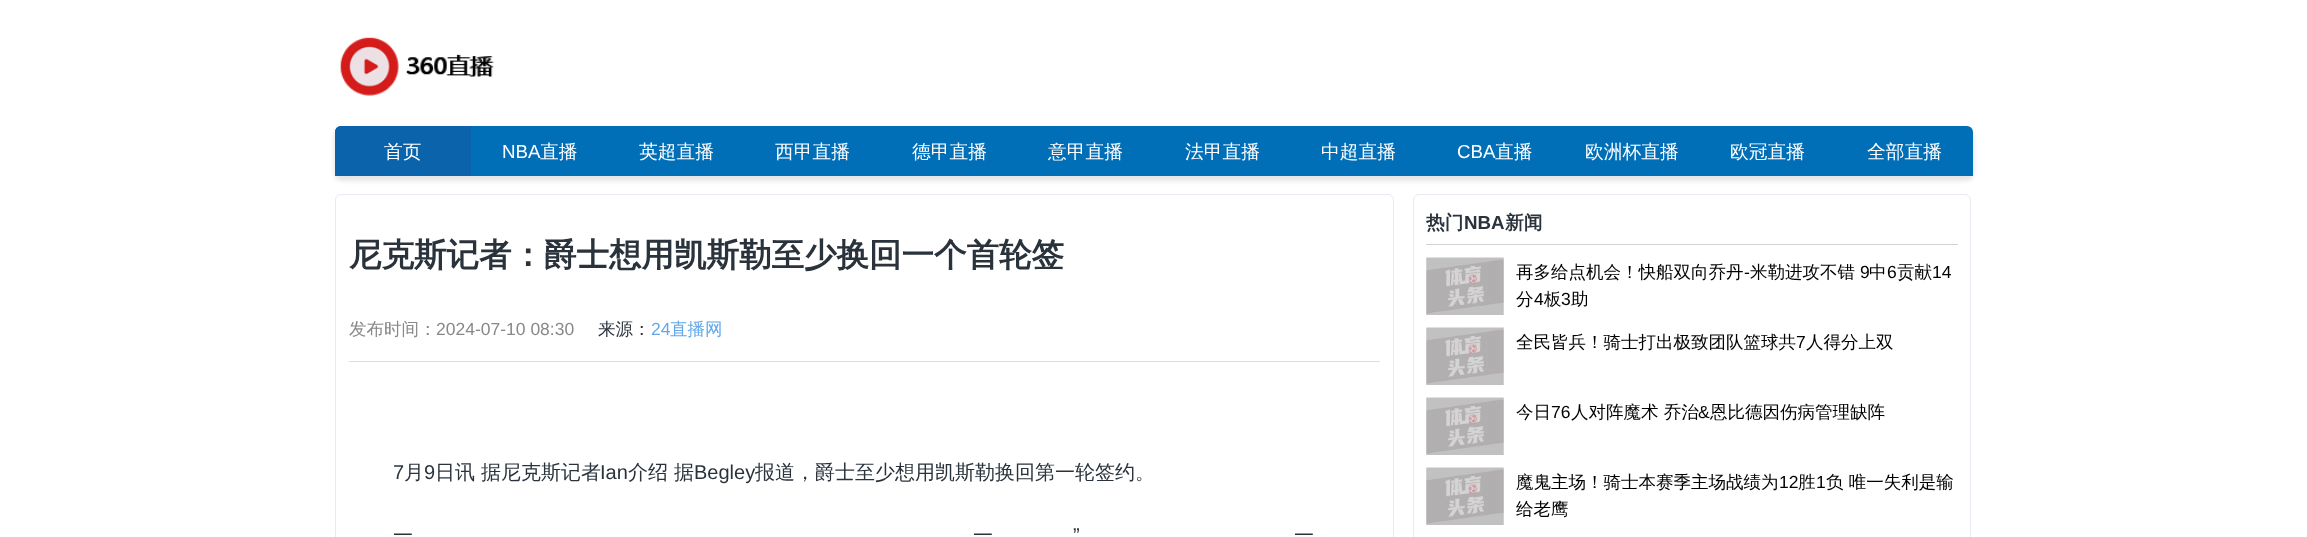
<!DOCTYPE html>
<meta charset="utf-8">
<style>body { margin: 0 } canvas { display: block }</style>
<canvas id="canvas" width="2307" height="537"></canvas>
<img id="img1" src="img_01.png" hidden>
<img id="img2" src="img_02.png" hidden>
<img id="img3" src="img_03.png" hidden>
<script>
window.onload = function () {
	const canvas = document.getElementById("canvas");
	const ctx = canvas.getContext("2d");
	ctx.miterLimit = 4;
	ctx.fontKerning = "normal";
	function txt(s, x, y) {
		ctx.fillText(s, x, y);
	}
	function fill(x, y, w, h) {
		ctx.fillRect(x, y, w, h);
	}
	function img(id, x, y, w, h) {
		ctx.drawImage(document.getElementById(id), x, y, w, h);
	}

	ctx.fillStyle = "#FFFFFF";
	fill(0, 0, 2307, 537);
	img("img1", 340, 37, 154, 59);
	ctx.fillStyle = "#E5E5E5";
	ctx.filter = "blur(2px)";
	ctx.beginPath();
	ctx.roundRect(334, 129, 1640, 52, 8);
	ctx.fill();
	ctx.filter = "none";
	ctx.fillStyle = "#016FB8";
	ctx.beginPath();
	ctx.roundRect(335, 126, 1638, 50, [6, 6, 0, 0]);
	ctx.fill();
	ctx.fillStyle = "#0A63AB";
	ctx.beginPath();
	ctx.roundRect(335, 126, 136, 50, [6, 0, 0, 0]);
	ctx.fill();
	ctx.beginPath();
	ctx.roundRect(335.5, 194.5, 1058, 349, 5.5);
	ctx.strokeStyle = "#E7EAF1";
	ctx.stroke();
	ctx.fillStyle = "#DEDEDE";
	fill(349, 361, 1031, 1);
	ctx.beginPath();
	ctx.roundRect(1413.5, 194.5, 557, 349, 5.5);
	ctx.stroke();
	ctx.fillStyle = "#D3D3D3";
	fill(1426, 244, 532, 1);
	img("img2", 1426, 257, 78, 58);
	img("img3", 1426, 327, 78, 58);
	img("img3", 1426, 397, 78, 58);
	img("img3", 1426, 467, 78, 58);
	ctx.font = "500 18.75px WenQuanYi Zen Hei";
	ctx.fillStyle = "#FFFFFF";
	txt("首页", 384, 158);
	ctx.font = "18.75px Liberation Sans";
	txt("NBA", 502, 158);
	ctx.font = "500 18.75px WenQuanYi Zen Hei";
	txt("直播", 540, 158);
	txt("英超直播", 639, 158);
	txt("西甲直播", 775, 158);
	txt("德甲直播", 912, 158);
	txt("意甲直播", 1048, 158);
	txt("法甲直播", 1185, 158);
	txt("中超直播", 1321, 158);
	ctx.font = "18.75px Liberation Sans";
	txt("CBA", 1457, 158);
	ctx.font = "500 18.75px WenQuanYi Zen Hei";
	txt("直播", 1495, 158);
	txt("欧洲杯直播", 1585, 158);
	txt("欧冠直播", 1730, 158);
	txt("全部直播", 1867, 158);
	ctx.font = "bold 32.5px WenQuanYi Zen Hei";
	ctx.fillStyle = "#2A333C";
	txt("尼克斯记者：爵士想用凯斯勒至少换回一个首轮签", 349, 266);
	ctx.font = "500 17.5px WenQuanYi Zen Hei";
	ctx.fillStyle = "#888888";
	txt("发布时间：", 349, 335);
	ctx.font = "17.5px Liberation Sans";
	txt("2024-07-10 08:30", 436, 335);
	ctx.font = "500 17.5px WenQuanYi Zen Hei";
	ctx.fillStyle = "#2A333C";
	txt("来源：", 598, 335);
	ctx.font = "17.5px Liberation Sans";
	ctx.fillStyle = "#62A8EA";
	txt("24", 651, 335);
	ctx.font = "500 17.5px WenQuanYi Zen Hei";
	txt("直播网", 670, 335);
	ctx.font = "20px Liberation Sans";
	ctx.fillStyle = "#2A333C";
	txt("7", 393, 479);
	ctx.font = "500 20px WenQuanYi Zen Hei";
	txt("月", 404, 479);
	ctx.font = "20px Liberation Sans";
	txt("9", 424, 479);
	ctx.font = "500 20px WenQuanYi Zen Hei";
	txt("日讯 据尼克斯记者", 435, 479);
	ctx.font = "20px Liberation Sans";
	txt("Ian", 600, 479);
	ctx.font = "500 20px WenQuanYi Zen Hei";
	txt("介绍 据", 628, 479);
	ctx.font = "20px Liberation Sans";
	txt("Begley", 694, 479);
	ctx.font = "500 20px WenQuanYi Zen Hei";
	txt("报道，爵士至少想用凯斯勒换回第一轮签约。", 755, 479);
	ctx.font = "20px Liberation Sans";
	txt("”", 1073, 542);
	ctx.font = "500 20px WenQuanYi Zen Hei";
	txt("一", 393, 542);
	txt("一", 973, 542);
	txt("一", 1294, 542);
	ctx.font = "bold 18.75px WenQuanYi Zen Hei";
	txt("热门", 1426, 229);
	ctx.font = "bold 18.75px Liberation Sans";
	txt("NBA", 1464, 229);
	ctx.font = "bold 18.75px WenQuanYi Zen Hei";
	txt("新闻", 1505, 229);
	ctx.font = "500 17.5px WenQuanYi Zen Hei";
	ctx.fillStyle = "#000000";
	txt("再多给点机会！快船双向乔丹", 1516, 278);
	ctx.font = "17.5px Liberation Sans";
	txt("-", 1744, 278);
	ctx.font = "500 17.5px WenQuanYi Zen Hei";
	txt("米勒进攻不错", 1750, 278);
	ctx.font = "17.5px Liberation Sans";
	txt("9", 1860, 278);
	ctx.font = "500 17.5px WenQuanYi Zen Hei";
	txt("中", 1869, 278);
	ctx.font = "17.5px Liberation Sans";
	txt("6", 1887, 278);
	ctx.font = "500 17.5px WenQuanYi Zen Hei";
	txt("贡献", 1897, 278);
	ctx.font = "17.5px Liberation Sans";
	txt("14", 1932, 278);
	ctx.font = "500 17.5px WenQuanYi Zen Hei";
	txt("分", 1516, 305);
	ctx.font = "17.5px Liberation Sans";
	txt("4", 1534, 305);
	ctx.font = "500 17.5px WenQuanYi Zen Hei";
	txt("板", 1544, 305);
	ctx.font = "17.5px Liberation Sans";
	txt("3", 1561, 305);
	ctx.font = "500 17.5px WenQuanYi Zen Hei";
	txt("助", 1571, 305);
	txt("全民皆兵！骑士打出极致团队篮球共", 1516, 348);
	ctx.font = "17.5px Liberation Sans";
	txt("7", 1796, 348);
	ctx.font = "500 17.5px WenQuanYi Zen Hei";
	txt("人得分上双", 1806, 348);
	txt("今日", 1516, 418);
	ctx.font = "17.5px Liberation Sans";
	txt("76", 1551, 418);
	ctx.font = "500 17.5px WenQuanYi Zen Hei";
	txt("人对阵魔术 乔治", 1571, 418);
	ctx.font = "17.5px Liberation Sans";
	txt("&", 1698, 418);
	ctx.font = "500 17.5px WenQuanYi Zen Hei";
	txt("恩比德因伤病管理缺阵", 1710, 418);
	txt("魔鬼主场！骑士本赛季主场战绩为", 1516, 488);
	ctx.font = "17.5px Liberation Sans";
	txt("12", 1779, 488);
	ctx.font = "500 17.5px WenQuanYi Zen Hei";
	txt("胜", 1798, 488);
	ctx.font = "17.5px Liberation Sans";
	txt("1", 1816, 488);
	ctx.font = "500 17.5px WenQuanYi Zen Hei";
	txt("负 唯一失利是输", 1826, 488);
	txt("给老鹰", 1516, 515);
};
</script>
